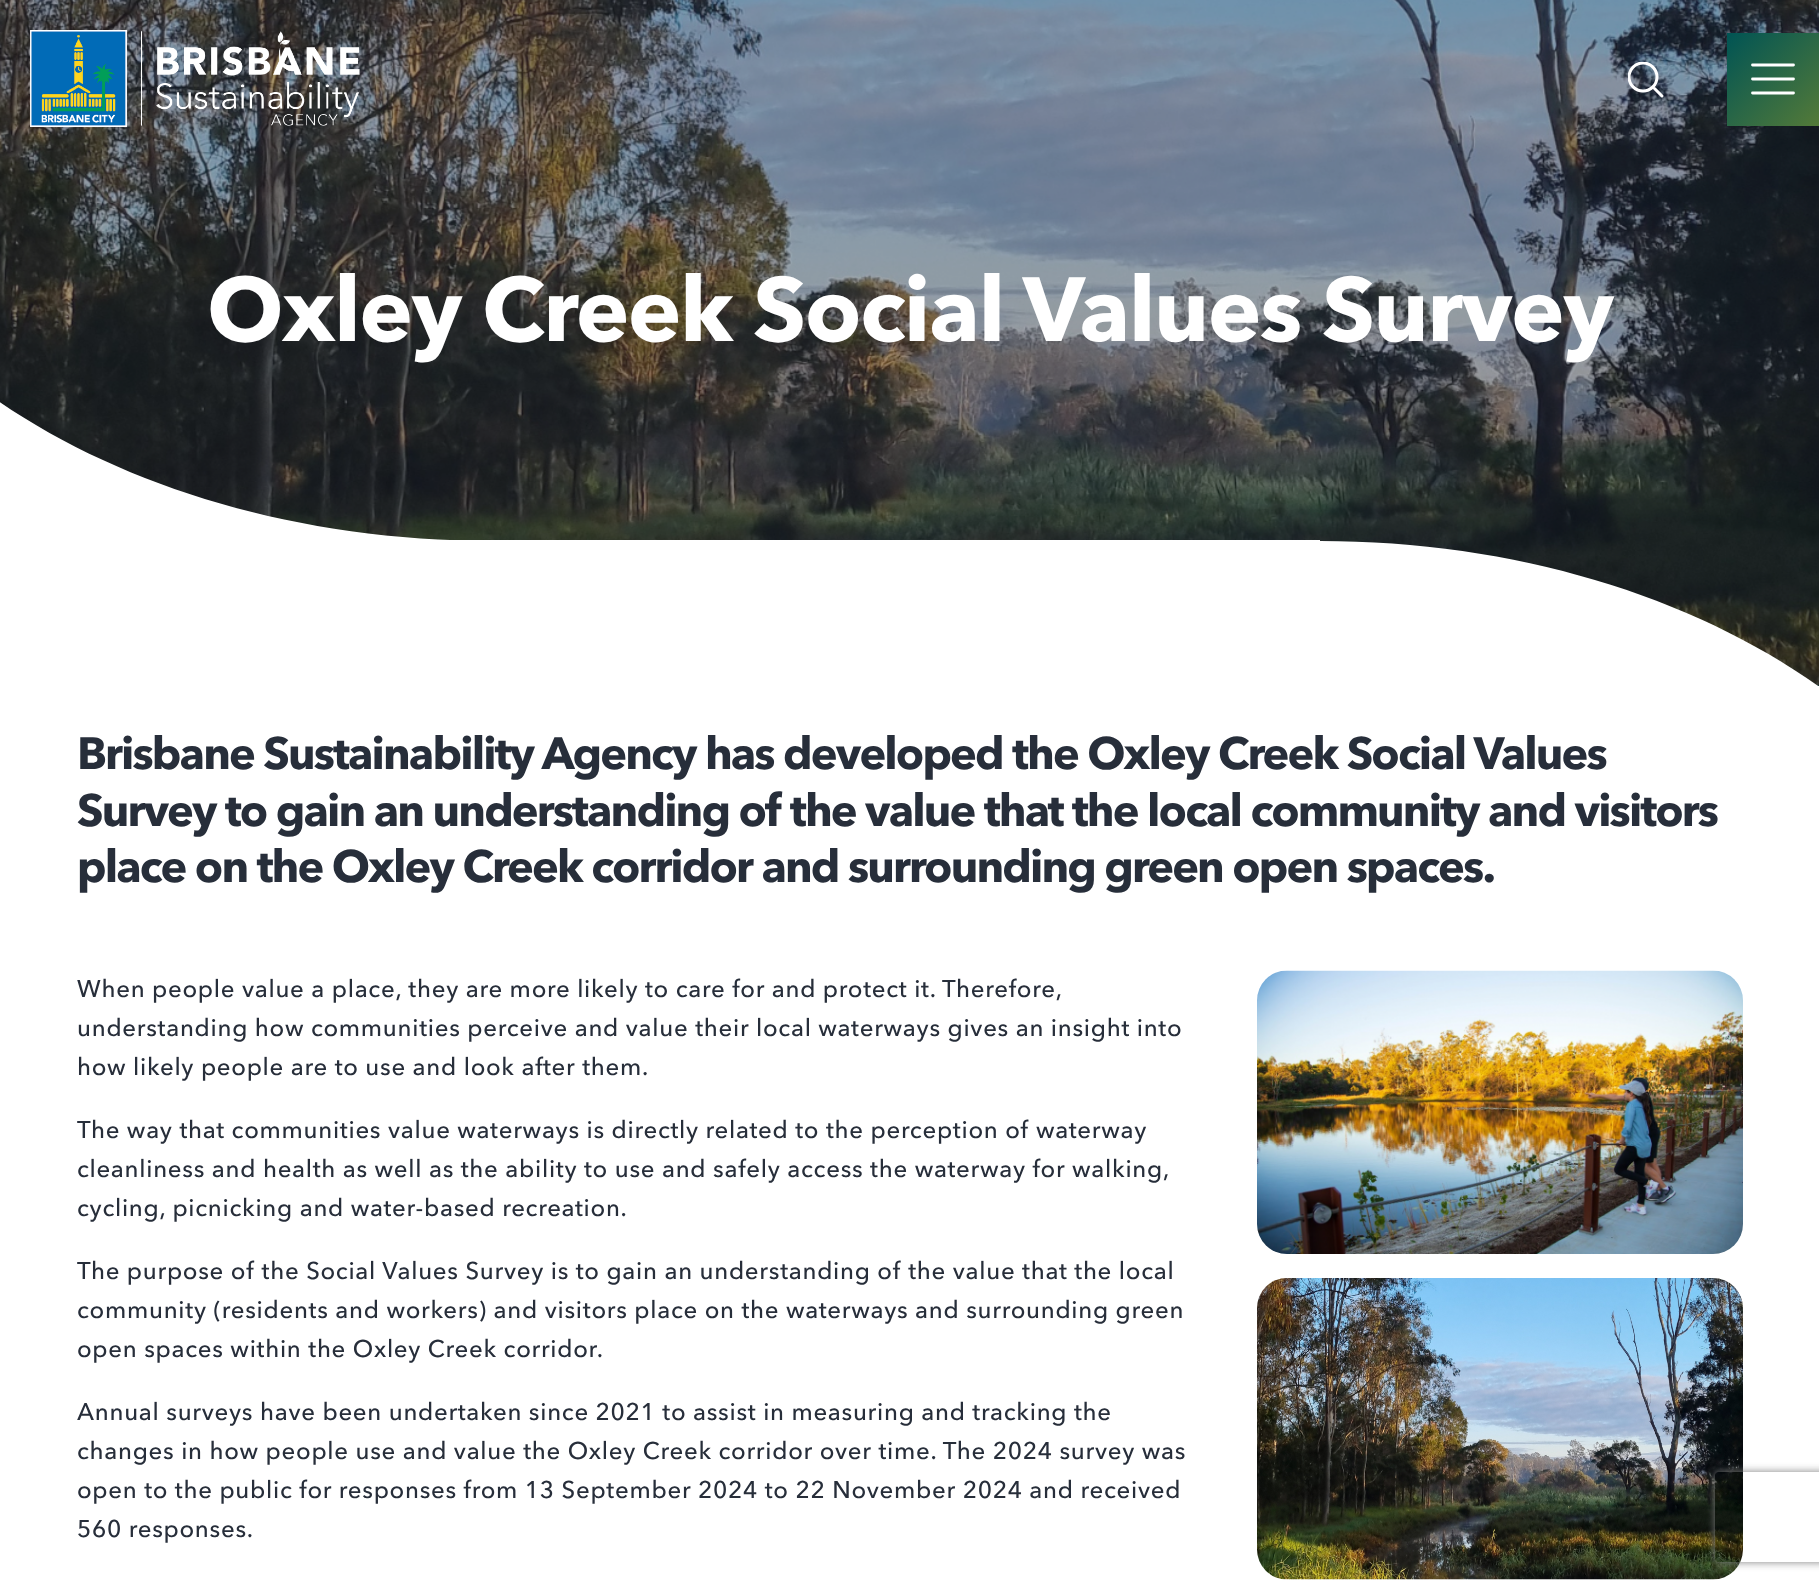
<!DOCTYPE html>
<meta charset="utf-8">
<style>body { margin: 0 } canvas { display: block }</style>
<canvas id="canvas" width="1819" height="1582"></canvas>
<img id="img1" src="img_02.png" hidden>
<img id="img2" src="img_01.png" hidden>
<img id="img3" src="img_03.png" hidden>
<img id="img4" src="img_04.png" hidden>
<script>
window.onload = function () {
	const canvas = document.getElementById("canvas");
	const ctx = canvas.getContext("2d");
	ctx.miterLimit = 4;
	ctx.fontKerning = "normal";
	function txt(s, x, y) {
		ctx.fillText(s, x, y);
	}
	function fill(x, y, w, h) {
		ctx.fillRect(x, y, w, h);
	}
	function img(id, x, y, w, h) {
		ctx.drawImage(document.getElementById(id), x, y, w, h);
	}
	let gradient;

	ctx.fillStyle = "#FFFFFF";
	fill(0, 0, 1819, 1582);
	ctx.fillStyle = "#10454A";
	fill(1816, 685, 3, 1);
	img("img1", 0, 0, 1819, 686);
	img("img2", 30, 30, 330, 98);
	ctx.save();
	ctx.beginPath();
	ctx.rect(1628, 62, 36, 36);
	ctx.clip();
	ctx.beginPath();
	ctx.arc(1643, 77, 14, 0, Math.PI * 2);
	ctx.strokeStyle = "#FFFFFF";
	ctx.lineWidth = 3;
	ctx.stroke();
	ctx.restore();
	ctx.beginPath();
	ctx.moveTo(1662, 96);
	ctx.lineTo(1654.5, 88.5);
	ctx.strokeStyle = "#FFFFFF";
	ctx.lineWidth = 3;
	ctx.lineCap = "round";
	ctx.lineJoin = "round";
	ctx.stroke();
	gradient = ctx.createLinearGradient(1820, 126, 1727, 33);
	gradient.addColorStop(0, "#547A38");
	gradient.addColorStop(1, "#005454");
	ctx.fillStyle = gradient;
	fill(1727, 33, 92, 93);
	ctx.beginPath();
	ctx.moveTo(1752.5, 65);
	ctx.lineTo(1793.5, 65);
	ctx.moveTo(1752.5, 79);
	ctx.lineTo(1793.5, 79);
	ctx.moveTo(1752.5, 93);
	ctx.lineTo(1793.5, 93);
	ctx.lineWidth = 2.8;
	ctx.lineJoin = "miter";
	ctx.stroke();
	ctx.fillStyle = "#FFFFFF";
	ctx.beginPath();
	ctx.moveTo(-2, 401);
	ctx.lineTo(-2, 541);
	ctx.lineTo(492, 541);
	ctx.bezierCurveTo(298, 541, 123, 487, -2, 401);
	ctx.closePath();
	ctx.fill("evenodd");
	fill(0, 540, 1320, 146);
	ctx.save();
	ctx.beginPath();
	ctx.rect(623, 540, 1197, 146);
	ctx.clip();
	ctx.beginPath();
	ctx.moveTo(1320, 541);
	ctx.bezierCurveTo(935, 541, 623, 757, 623, 1023);
	ctx.bezierCurveTo(623, 1289, 935, 1505, 1320, 1505);
	ctx.bezierCurveTo(1705, 1505, 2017, 1289, 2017, 1023);
	ctx.bezierCurveTo(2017, 757, 1705, 541, 1320, 541);
	ctx.closePath();
	ctx.fill("evenodd");
	ctx.restore();
	img("img3", 1257, 970, 486, 284);
	img("img4", 1257, 1278, 486, 302);
	ctx.save();
	ctx.beginPath();
	ctx.moveTo(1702, 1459);
	ctx.lineTo(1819, 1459);
	ctx.lineTo(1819, 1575);
	ctx.lineTo(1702, 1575);
	ctx.closePath();
	ctx.moveTo(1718, 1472);
	ctx.lineTo(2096, 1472);
	ctx.bezierCurveTo(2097.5, 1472, 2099, 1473.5, 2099, 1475);
	ctx.lineTo(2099, 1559);
	ctx.bezierCurveTo(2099, 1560.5, 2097.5, 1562, 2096, 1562);
	ctx.lineTo(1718, 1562);
	ctx.bezierCurveTo(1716.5, 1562, 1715, 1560.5, 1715, 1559);
	ctx.lineTo(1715, 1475);
	ctx.bezierCurveTo(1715, 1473.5, 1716.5, 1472, 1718, 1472);
	ctx.closePath();
	ctx.clip("evenodd");
	ctx.fillStyle = "#808080";
	ctx.filter = "blur(4px)";
	ctx.beginPath();
	ctx.roundRect(1715, 1472, 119, 90, 3);
	ctx.fill();
	ctx.filter = "none";
	ctx.restore();
	ctx.letterSpacing = "-1.5px";
	ctx.font = "bold 90px Avenir Next";
	txt("Oxley Creek Social Values Survey", 207, 341);
	ctx.letterSpacing = "-1.88px";
	ctx.font = "bold 45px Avenir Next";
	ctx.fillStyle = "#272E3A";
	txt("Brisbane Sustainability Agency has developed the Oxley Creek Social Values", 77, 769);
	txt("Survey to gain an understanding of the value that the local community and visitors", 77, 826);
	txt("place on the Oxley Creek corridor and surrounding green open spaces.", 77, 882);
	ctx.letterSpacing = "0.72px";
	ctx.font = "500 24px Avenir Next";
	txt("When people value a place, they are more likely to care for and protect it. Therefore,", 77, 997);
	txt("understanding how communities perceive and value their local waterways gives an insight into", 77, 1036);
	txt("how likely people are to use and look after them.", 77, 1075);
	txt("The way that communities value waterways is directly related to the perception of waterway", 77, 1138);
	txt("cleanliness and health as well as the ability to use and safely access the waterway for walking,", 77, 1177);
	txt("cycling, picnicking and water-based recreation.", 77, 1216);
	txt("The purpose of the Social Values Survey is to gain an understanding of the value that the local", 77, 1279);
	txt("community (residents and workers) and visitors place on the waterways and surrounding green", 77, 1318);
	txt("open spaces within the Oxley Creek corridor.", 77, 1357);
	txt("Annual surveys have been undertaken since 2021 to assist in measuring and tracking the", 77, 1420);
	txt("changes in how people use and value the Oxley Creek corridor over time. The 2024 survey was", 77, 1459);
	txt("open to the public for responses from 13 September 2024 to 22 November 2024 and received", 77, 1498);
	txt("560 responses.", 77, 1537);
};
</script>
